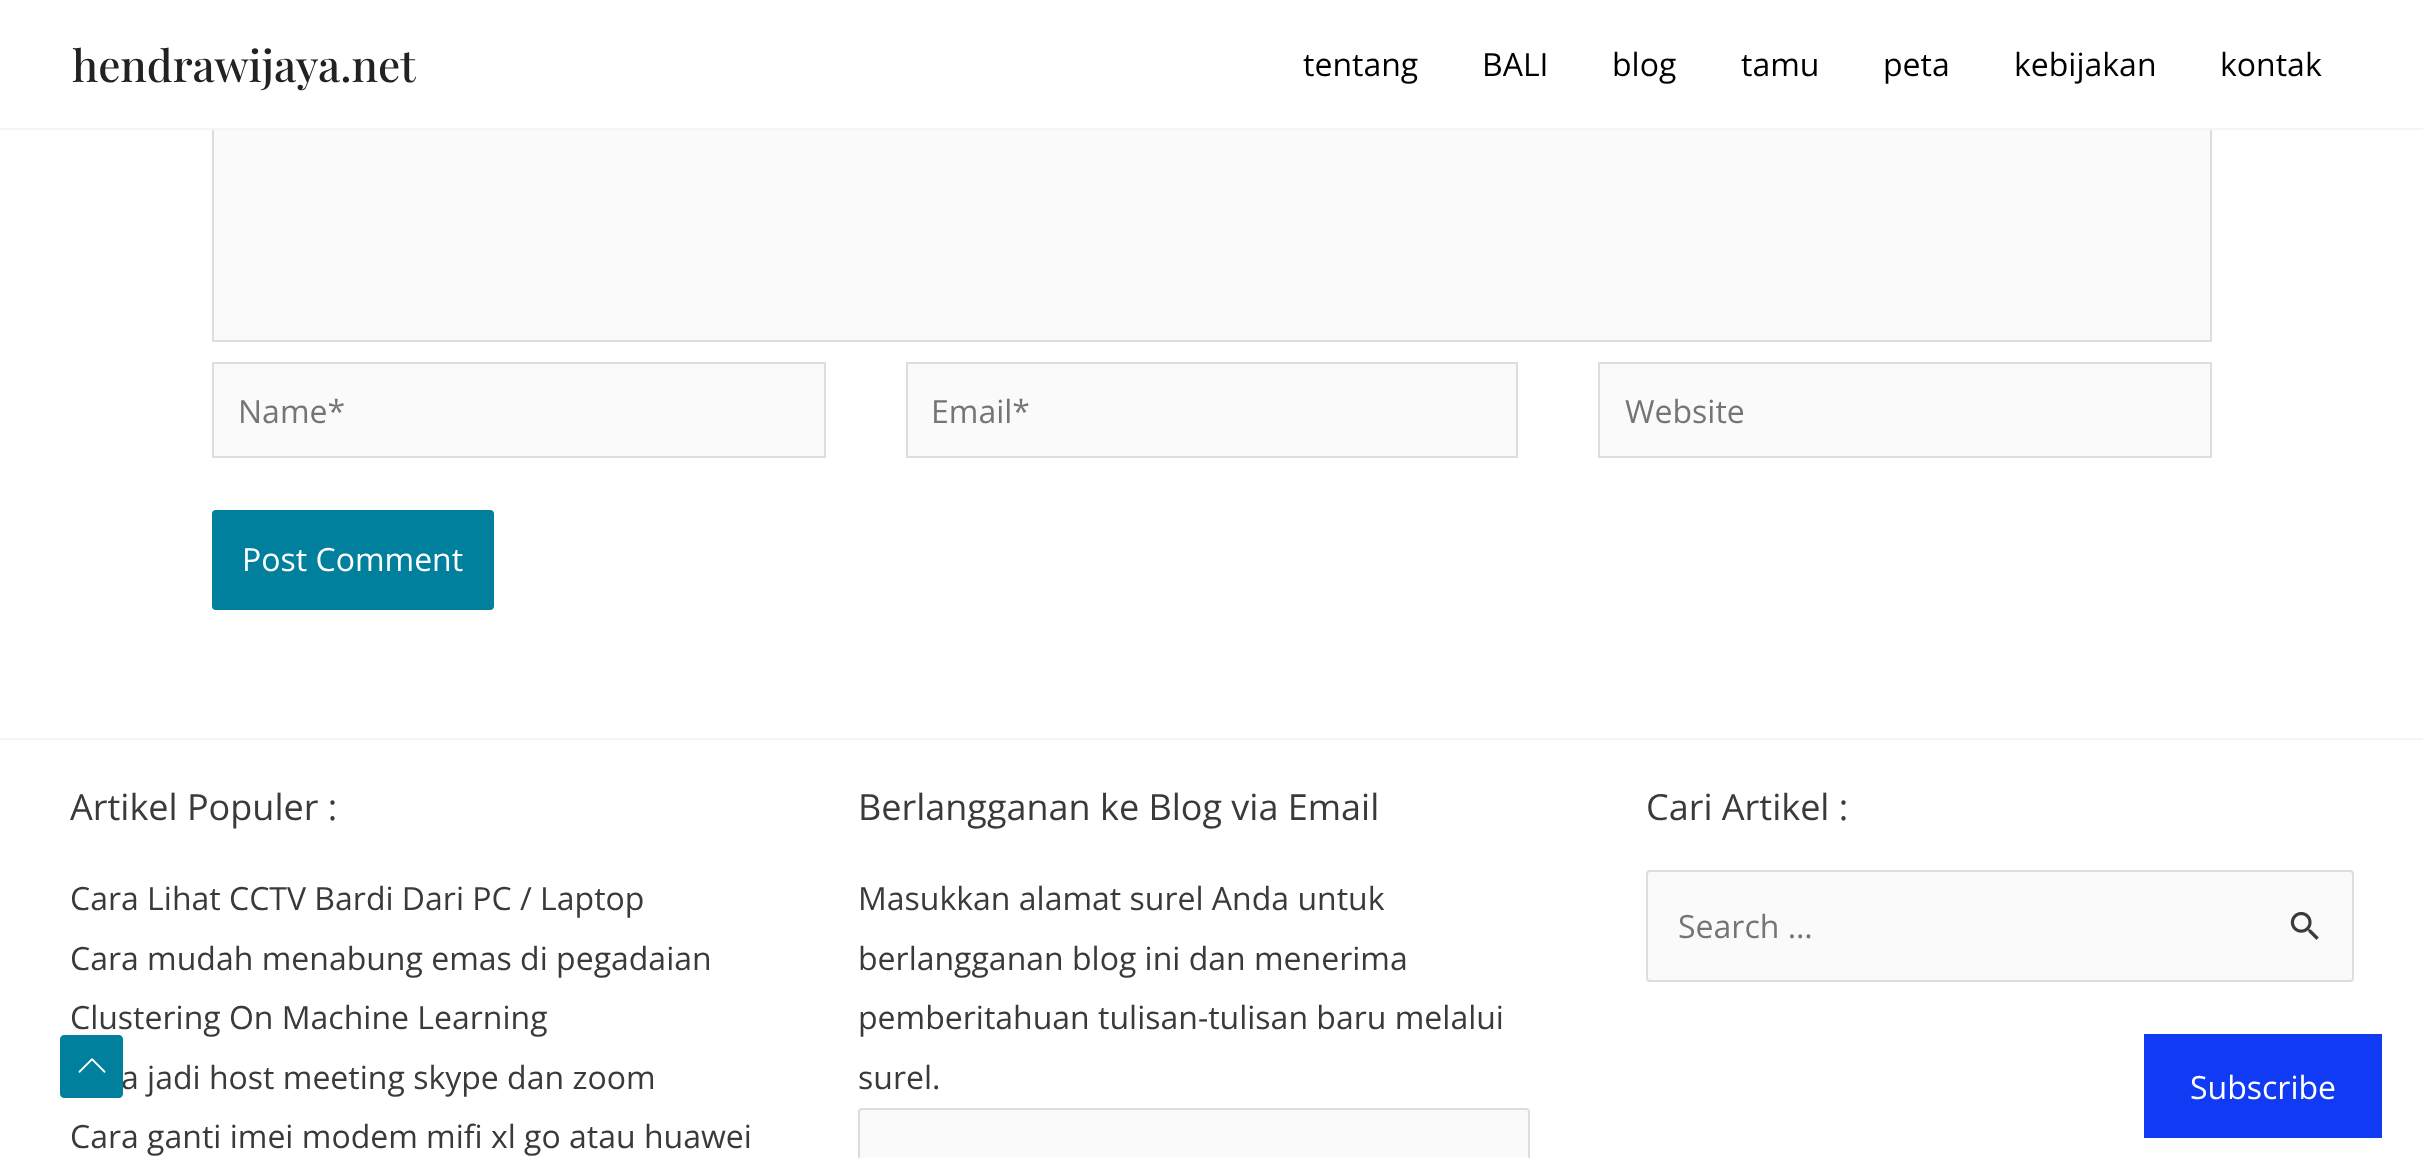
<!DOCTYPE html>
<meta charset="utf-8">
<style>body { margin: 0 } canvas { display: block }</style>
<canvas id="canvas" width="2423" height="1158"></canvas>
<img id="img1" src="img_01.png" hidden>
<img id="img2" src="img_02.png" hidden>
<script>
window.onload = function () {
	const canvas = document.getElementById("canvas");
	const ctx = canvas.getContext("2d");
	ctx.miterLimit = 4;
	ctx.fontKerning = "normal";
	function txt(s, x, y) {
		ctx.fillText(s, x, y);
	}
	function fill(x, y, w, h) {
		ctx.fillRect(x, y, w, h);
	}
	function round(x, y, w, h, r) {
		ctx.beginPath();
		ctx.roundRect(x, y, w, h, r);
		ctx.fill();
	}
	function img(id, x, y, w, h) {
		ctx.drawImage(document.getElementById(id), x, y, w, h);
	}

	ctx.fillStyle = "#FFFFFF";
	fill(0, 0, 2423, 1158);
	ctx.fillStyle = "#FAFAFA";
	fill(214, 130, 1996, 210);
	ctx.strokeStyle = "#DDDDDD";
	ctx.lineWidth = 2;
	ctx.strokeRect(213, -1, 1998, 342);
	ctx.fillStyle = "#FFFFFF";
	fill(212, 0, 2000, 128);
	ctx.fillStyle = "#F5F5F5";
	fill(0, 128, 2423, 2);
	ctx.fillStyle = "#FAFAFA";
	ctx.beginPath();
	ctx.rect(213, 363, 612, 94);
	ctx.fill();
	ctx.stroke();
	ctx.beginPath();
	ctx.rect(907, 363, 610, 94);
	ctx.fill();
	ctx.stroke();
	ctx.beginPath();
	ctx.rect(1599, 363, 612, 94);
	ctx.fill();
	ctx.stroke();
	ctx.fillStyle = "#00809D";
	round(212, 510, 282, 100, 4);
	ctx.fillStyle = "#F2F5F7";
	fill(0, 738, 2423, 2);
	ctx.fillStyle = "#FAFAFA";
	ctx.beginPath();
	ctx.roundRect(859, 1109, 670, 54, 3);
	ctx.fill();
	ctx.stroke();
	ctx.beginPath();
	ctx.roundRect(1647, 871, 706, 110, 3);
	ctx.fill();
	ctx.stroke();
	img("img1", 2290, 911, 29, 29);
	ctx.fillStyle = "#113AF5";
	fill(2144, 1034, 238, 104);
	ctx.font = "500 44px Playfair Display";
	ctx.fillStyle = "#222222";
	txt("hendrawijaya.net", 72, 82);
	ctx.font = "32px Open Sans";
	ctx.fillStyle = "#000000";
	txt("tentang", 1303, 76);
	txt("BALI", 1482, 76);
	txt("blog", 1612, 76);
	txt("tamu", 1741, 76);
	txt("peta", 1883, 76);
	txt("kebijakan", 2014, 76);
	txt("kontak", 2220, 76);
	ctx.fillStyle = "#757575";
	txt("Name*", 238, 423);
	txt("Email*", 931, 423);
	txt("Website", 1625, 423);
	ctx.fillStyle = "#FFFFFF";
	txt("Post Comment", 242, 571);
	ctx.font = "36px Open Sans";
	ctx.fillStyle = "#3A3A3A";
	txt("Artikel Populer :", 70, 820);
	ctx.font = "32px Open Sans";
	txt("Cara Lihat CCTV Bardi Dari PC / Laptop", 70, 910);
	txt("Cara mudah menabung emas di pegadaian", 70, 970);
	txt("Clustering On Machine Learning", 70, 1029);
	txt("a jadi host meeting skype dan zoom", 121, 1089);
	txt("Cara ganti imei modem mifi xl go atau huawei", 70, 1148);
	ctx.font = "36px Open Sans";
	txt("Berlangganan ke Blog via Email", 858, 820);
	ctx.font = "32px Open Sans";
	txt("Masukkan alamat surel Anda untuk", 858, 910);
	txt("berlangganan blog ini dan menerima", 858, 970);
	txt("pemberitahuan tulisan-tulisan baru melalui", 858, 1029);
	txt("surel.", 858, 1089);
	ctx.font = "36px Open Sans";
	txt("Cari Artikel :", 1646, 820);
	ctx.font = "32px Open Sans";
	ctx.fillStyle = "#757575";
	txt("Search …", 1678, 938);
	ctx.fillStyle = "#00809D";
	ctx.beginPath();
	ctx.moveTo(119, 1098);
	ctx.lineTo(64, 1098);
	ctx.bezierCurveTo(62, 1098, 60, 1096, 60, 1094);
	ctx.lineTo(60, 1039);
	ctx.bezierCurveTo(60, 1037, 62, 1035, 64, 1035);
	ctx.lineTo(119, 1035);
	ctx.bezierCurveTo(121, 1035, 123, 1037, 123, 1039);
	ctx.lineTo(123, 1094);
	ctx.bezierCurveTo(123, 1096, 121, 1098, 119, 1098);
	ctx.closePath();
	ctx.fill();
	img("img2", 78, 1058, 28, 15);
	ctx.fillStyle = "#FFFFFF";
	txt("Subscribe", 2190, 1099);
};
</script>
